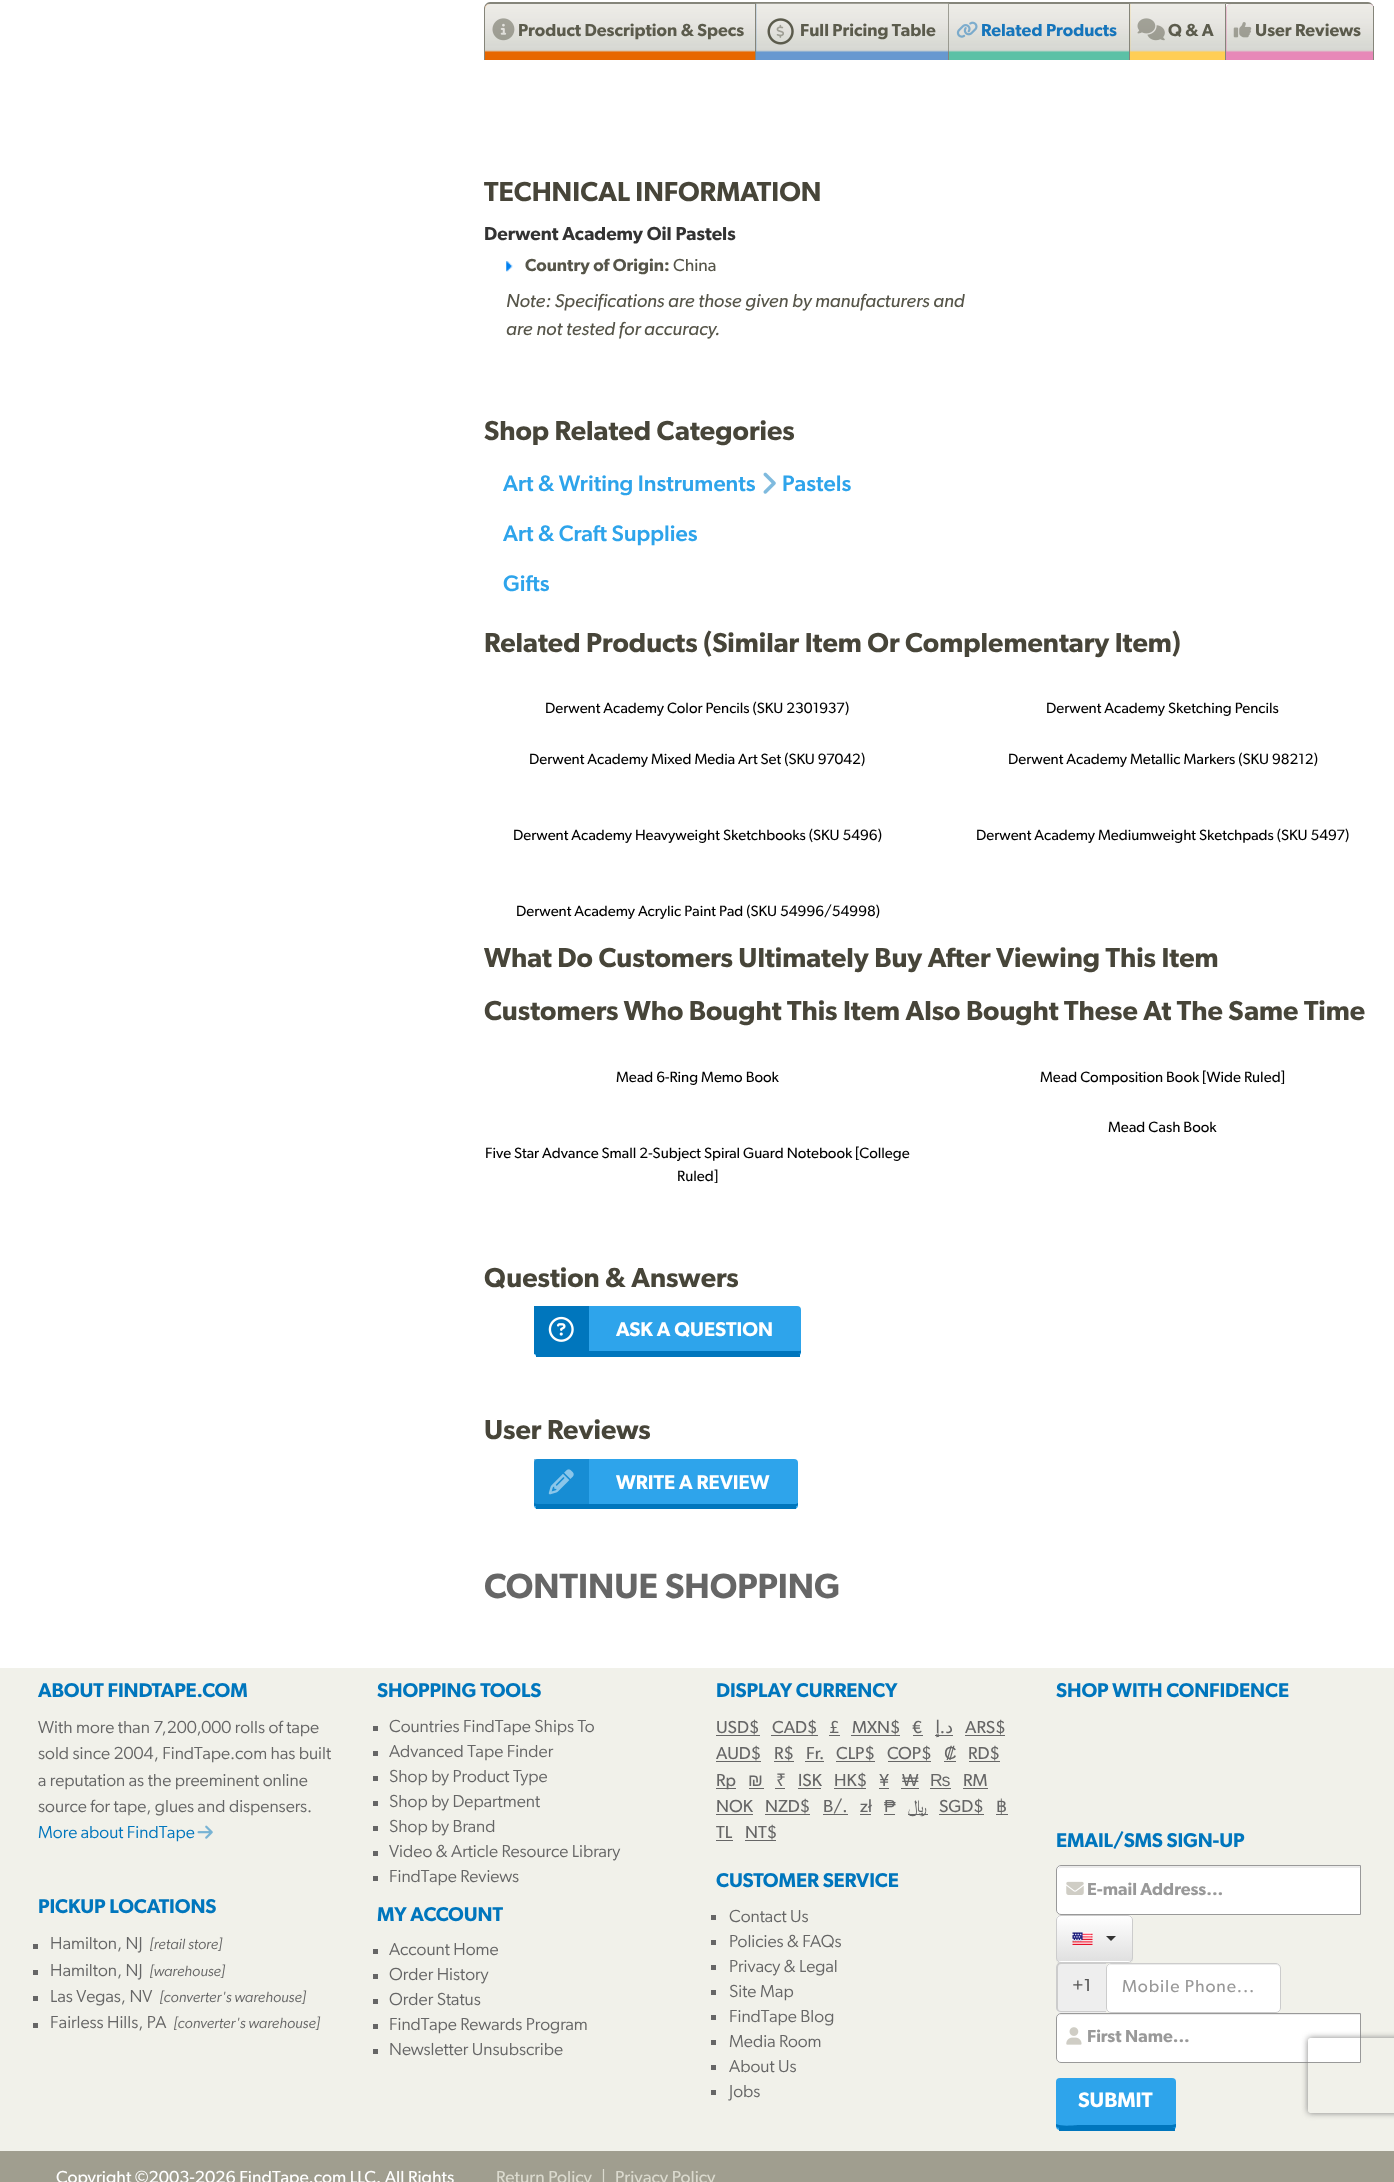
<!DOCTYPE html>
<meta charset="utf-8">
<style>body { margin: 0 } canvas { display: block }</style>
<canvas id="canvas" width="1394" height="2182"></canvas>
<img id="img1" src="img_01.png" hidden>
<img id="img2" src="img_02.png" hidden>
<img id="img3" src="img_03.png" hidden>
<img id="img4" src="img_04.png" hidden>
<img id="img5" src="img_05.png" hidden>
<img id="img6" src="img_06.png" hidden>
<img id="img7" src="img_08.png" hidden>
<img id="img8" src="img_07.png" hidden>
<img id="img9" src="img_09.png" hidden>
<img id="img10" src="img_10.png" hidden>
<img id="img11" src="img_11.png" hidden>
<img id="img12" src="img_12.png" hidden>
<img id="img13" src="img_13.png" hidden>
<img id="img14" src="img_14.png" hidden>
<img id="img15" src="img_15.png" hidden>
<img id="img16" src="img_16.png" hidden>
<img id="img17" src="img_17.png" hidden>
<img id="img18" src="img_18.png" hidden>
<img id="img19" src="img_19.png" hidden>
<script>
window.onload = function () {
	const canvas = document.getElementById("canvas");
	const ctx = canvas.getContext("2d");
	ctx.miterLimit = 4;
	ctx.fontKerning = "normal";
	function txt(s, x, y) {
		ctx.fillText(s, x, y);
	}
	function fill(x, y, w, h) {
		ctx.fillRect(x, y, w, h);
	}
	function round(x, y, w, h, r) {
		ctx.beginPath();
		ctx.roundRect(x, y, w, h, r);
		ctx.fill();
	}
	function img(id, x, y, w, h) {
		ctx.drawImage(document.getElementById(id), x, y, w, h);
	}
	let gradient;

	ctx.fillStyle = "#FFFFFF";
	fill(0, 0, 1394, 2182);
	ctx.fillStyle = "#85857A";
	ctx.beginPath();
	ctx.moveTo(490, 2);
	ctx.lineTo(1368, 2);
	ctx.bezierCurveTo(1371, 2, 1374, 5, 1374, 9);
	ctx.lineTo(1374, 60);
	ctx.lineTo(484, 60);
	ctx.lineTo(484, 9);
	ctx.bezierCurveTo(484, 5, 487, 2, 490, 2);
	ctx.closePath();
	ctx.moveTo(490, 4);
	ctx.lineTo(1368, 4);
	ctx.bezierCurveTo(1371, 4, 1374, 6, 1374, 9);
	ctx.lineTo(1374, 60);
	ctx.lineTo(485, 60);
	ctx.lineTo(485, 9);
	ctx.bezierCurveTo(485, 6, 487, 4, 490, 4);
	ctx.closePath();
	ctx.fill("evenodd");
	ctx.fillStyle = "#E76700";
	ctx.beginPath();
	ctx.roundRect(485, 4, 271, 56, [5, 0, 0, 0]);
	ctx.fill();
	img("img1", 485, 4, 270, 48);
	ctx.fillStyle = "#85857A";
	fill(755, 4, 1, 56);
	img("img2", 492, 18, 23, 23);
	ctx.fillStyle = "#6798D0";
	fill(756, 4, 192, 56);
	img("img3", 756, 3, 194, 49);
	ctx.fillStyle = "#85857A";
	fill(948, 4, 1, 56);
	img("img4", 767, 18, 27, 27);
	img("img5", 776, 24, 8, 14);
	ctx.fillStyle = "#5BC1A6";
	fill(949, 50, 180, 10);
	img("img6", 948, 4, 181, 48);
	ctx.fillStyle = "#FFCE55";
	fill(1130, 4, 95, 56);
	img("img7", 1129, 3, 98, 49);
	ctx.fillStyle = "#85857A";
	fill(1129, 4, 1, 56);
	img("img8", 956, 21, 22, 17);
	fill(1225, 4, 1, 56);
	img("img9", 1137, 18, 28, 23);
	ctx.fillStyle = "#E788B8";
	ctx.beginPath();
	ctx.roundRect(1226, 4, 148, 56, [5, 5, 0, 0]);
	ctx.fill();
	img("img10", 1226, 4, 147, 48);
	ctx.fillStyle = "#85857A";
	fill(1373, 6, 1, 54);
	img("img11", 1233, 22, 19, 16);
	img("img12", 506, 261, 7, 11);
	img("img13", 763, 472, 13, 22);
	ctx.fillStyle = "#2EA4EB";
	round(534, 1306, 267, 50, 4);
	ctx.fillStyle = "#0076BD";
	ctx.beginPath();
	ctx.moveTo(534, 1309);
	ctx.lineTo(534, 1352);
	ctx.bezierCurveTo(534, 1353, 535, 1354, 538, 1354);
	ctx.lineTo(798, 1354);
	ctx.bezierCurveTo(800, 1354, 801, 1353, 801, 1352);
	ctx.lineTo(801, 1309);
	ctx.lineTo(801, 1350);
	ctx.bezierCurveTo(801, 1351, 800, 1351, 798, 1351);
	ctx.lineTo(538, 1351);
	ctx.bezierCurveTo(535, 1351, 534, 1351, 534, 1350);
	ctx.closePath();
	ctx.fill();
	fill(536, 1354, 264, 3);
	fill(534, 1306, 55, 48);
	img("img14", 548, 1316, 26, 26);
	ctx.fillStyle = "#2EA4EB";
	round(534, 1459, 264, 50, 4);
	ctx.fillStyle = "#0076BD";
	ctx.beginPath();
	ctx.moveTo(534, 1461);
	ctx.lineTo(534, 1505);
	ctx.bezierCurveTo(534, 1506, 535, 1506, 538, 1506);
	ctx.lineTo(794, 1506);
	ctx.bezierCurveTo(796, 1506, 798, 1506, 798, 1505);
	ctx.lineTo(798, 1503);
	ctx.bezierCurveTo(797, 1504, 795, 1504, 794, 1504);
	ctx.lineTo(538, 1504);
	ctx.bezierCurveTo(535, 1504, 534, 1503, 534, 1502);
	ctx.closePath();
	ctx.fill();
	fill(536, 1506, 260, 3);
	ctx.fillStyle = "rgba(0, 118, 189, 0.5)";
	fill(534, 1459, 55, 47);
	img("img15", 548, 1469, 26, 26);
	ctx.fillStyle = "#F1F1EA";
	fill(0, 1668, 1394, 483);
	img("img16", 197, 1825, 16, 14);
	ctx.fillStyle = "#666666";
	fill(33, 1944, 5, 5);
	fill(33, 1970, 5, 5);
	fill(33, 1996, 5, 5);
	fill(33, 2023, 5, 5);
	fill(373, 1726, 5, 5);
	fill(373, 1751, 5, 5);
	fill(373, 1776, 5, 5);
	fill(373, 1801, 5, 5);
	fill(373, 1826, 5, 5);
	fill(373, 1851, 5, 5);
	fill(373, 1876, 5, 5);
	fill(373, 1949, 5, 5);
	fill(373, 1974, 5, 5);
	fill(373, 1999, 5, 5);
	fill(373, 2024, 5, 5);
	fill(373, 2049, 5, 5);
	fill(716, 1735, 44, 1);
	fill(771, 1735, 47, 1);
	fill(829, 1735, 11, 1);
	fill(851, 1735, 49, 1);
	fill(913, 1735, 10, 1);
	fill(935, 1735, 18, 1);
	fill(965, 1735, 40, 1);
	fill(716, 1761, 45, 1);
	fill(774, 1761, 20, 1);
	fill(805, 1761, 19, 1);
	fill(836, 1761, 39, 1);
	fill(888, 1761, 43, 1);
	fill(944, 1761, 12, 1);
	fill(969, 1761, 31, 1);
	fill(716, 1788, 20, 1);
	fill(749, 1788, 15, 1);
	fill(775, 1788, 10, 1);
	fill(798, 1788, 23, 1);
	fill(834, 1788, 32, 1);
	fill(879, 1788, 10, 1);
	fill(901, 1788, 18, 1);
	fill(930, 1788, 21, 1);
	fill(963, 1788, 25, 1);
	fill(716, 1814, 37, 1);
	fill(765, 1814, 45, 1);
	fill(823, 1814, 25, 1);
	fill(860, 1814, 11, 1);
	fill(884, 1814, 11, 1);
	fill(908, 1814, 20, 1);
	fill(939, 1814, 45, 1);
	fill(996, 1814, 12, 1);
	fill(716, 1840, 17, 1);
	fill(745, 1840, 31, 1);
	fill(711, 1915, 5, 5);
	fill(711, 1940, 5, 5);
	fill(711, 1965, 5, 5);
	fill(711, 1990, 5, 5);
	fill(711, 2015, 5, 5);
	fill(711, 2040, 5, 5);
	fill(711, 2065, 5, 5);
	fill(711, 2090, 5, 5);
	ctx.fillStyle = "#FFFFFF";
	ctx.beginPath();
	ctx.roundRect(1056, 1865, 305, 50, [5, 0, 0, 5]);
	ctx.fill();
	ctx.fillStyle = "#ECECEC";
	ctx.beginPath();
	ctx.moveTo(1061, 1868);
	ctx.lineTo(1360, 1868);
	ctx.lineTo(1360, 1866);
	ctx.lineTo(1062, 1866);
	ctx.bezierCurveTo(1060, 1866, 1058, 1868, 1058, 1870);
	ctx.lineTo(1058, 1871);
	ctx.bezierCurveTo(1058, 1869, 1059, 1868, 1061, 1868);
	ctx.closePath();
	ctx.fill();
	ctx.beginPath();
	ctx.roundRect(1056.5, 1865.5, 304, 49, [4.5, 0, 0, 4.5]);
	ctx.strokeStyle = "#999999";
	ctx.stroke();
	img("img17", 1066, 1881, 18, 14);
	ctx.fillStyle = "rgba(0, 0, 0, 0.07)";
	ctx.filter = "blur(0.5px)";
	ctx.beginPath();
	ctx.roundRect(1056, 1916, 77, 48, 5);
	ctx.fill();
	ctx.filter = "none";
	ctx.fillStyle = "#FFFFFF";
	round(1056, 1915, 77, 48, 5);
	ctx.save();
	ctx.beginPath();
	ctx.roundRect(1056, 1915, 77, 48, 5);
	ctx.clip();
	gradient = ctx.createLinearGradient(1094, 1916, 1094, 1961);
	gradient.addColorStop(0, "#FFFFFF");
	gradient.addColorStop(1, "#E0E0E0");
	ctx.fillStyle = gradient;
	fill(1056, 1916, 77, 45);
	ctx.restore();
	ctx.beginPath();
	ctx.roundRect(1056.5, 1915.5, 76, 47, 4.5);
	ctx.strokeStyle = "#CCCCCC";
	ctx.stroke();
	img("img18", 1072, 1932, 21, 13);
	ctx.fillStyle = "#333333";
	ctx.beginPath();
	ctx.moveTo(1106, 1936);
	ctx.lineTo(1116, 1936);
	ctx.lineTo(1111, 1941);
	ctx.closePath();
	ctx.fill();
	ctx.fillStyle = "#EEEEEE";
	ctx.beginPath();
	ctx.roundRect(1056, 1963, 50, 50, [5, 0, 0, 5]);
	ctx.fill();
	ctx.fillStyle = "#CCCCCC";
	ctx.beginPath();
	ctx.moveTo(1061, 1962);
	ctx.lineTo(1106, 1962);
	ctx.lineTo(1106, 2012);
	ctx.lineTo(1061, 2012);
	ctx.bezierCurveTo(1058, 2012, 1056, 2010, 1056, 2008);
	ctx.lineTo(1056, 1968);
	ctx.bezierCurveTo(1056, 1965, 1058, 1962, 1061, 1962);
	ctx.closePath();
	ctx.moveTo(1061, 1964);
	ctx.lineTo(1106, 1964);
	ctx.lineTo(1106, 2011);
	ctx.lineTo(1061, 2011);
	ctx.bezierCurveTo(1059, 2011, 1058, 2010, 1058, 2008);
	ctx.lineTo(1058, 1968);
	ctx.bezierCurveTo(1058, 1965, 1059, 1964, 1061, 1964);
	ctx.closePath();
	ctx.fill("evenodd");
	ctx.fillStyle = "#FFFFFF";
	round(1106, 1963, 175, 50, 5);
	ctx.fillStyle = "#ECECEC";
	ctx.beginPath();
	ctx.moveTo(1111, 1965);
	ctx.lineTo(1276, 1965);
	ctx.bezierCurveTo(1278, 1965, 1280, 1967, 1280, 1969);
	ctx.lineTo(1280, 1968);
	ctx.bezierCurveTo(1280, 1966, 1278, 1964, 1276, 1964);
	ctx.lineTo(1112, 1964);
	ctx.bezierCurveTo(1110, 1964, 1108, 1966, 1108, 1968);
	ctx.lineTo(1108, 1969);
	ctx.bezierCurveTo(1108, 1967, 1109, 1965, 1111, 1965);
	ctx.closePath();
	ctx.fill();
	ctx.beginPath();
	ctx.roundRect(1106.5, 1963.5, 174, 49, 4.5);
	ctx.stroke();
	ctx.fillStyle = "#FFFFFF";
	ctx.beginPath();
	ctx.roundRect(1056, 2013, 305, 50, [5, 0, 0, 5]);
	ctx.fill();
	ctx.fillStyle = "#ECECEC";
	ctx.beginPath();
	ctx.moveTo(1061, 2015);
	ctx.lineTo(1360, 2015);
	ctx.lineTo(1360, 2014);
	ctx.lineTo(1062, 2014);
	ctx.bezierCurveTo(1060, 2014, 1058, 2016, 1058, 2018);
	ctx.lineTo(1058, 2019);
	ctx.bezierCurveTo(1058, 2017, 1059, 2015, 1061, 2015);
	ctx.closePath();
	ctx.fill();
	ctx.beginPath();
	ctx.roundRect(1056.5, 2013.5, 304, 49, [4.5, 0, 0, 4.5]);
	ctx.strokeStyle = "#999999";
	ctx.stroke();
	img("img19", 1066, 2027, 16, 18);
	ctx.fillStyle = "#2EA4EB";
	round(1056, 2078, 120, 52, 4);
	ctx.fillStyle = "#0076BD";
	ctx.beginPath();
	ctx.moveTo(1056, 2124);
	ctx.lineTo(1056, 2126);
	ctx.bezierCurveTo(1056, 2127, 1058, 2128, 1060, 2128);
	ctx.lineTo(1172, 2128);
	ctx.bezierCurveTo(1175, 2128, 1176, 2127, 1176, 2126);
	ctx.lineTo(1176, 2080);
	ctx.lineTo(1176, 2124);
	ctx.lineTo(1172, 2125);
	ctx.lineTo(1079, 2125);
	ctx.bezierCurveTo(1077, 2125, 1062, 2127, 1056, 2124);
	ctx.closePath();
	ctx.fill();
	fill(1059, 2128, 116, 3);
	ctx.fillStyle = "#A09E8F";
	fill(0, 2151, 1394, 31);
	ctx.save();
	ctx.beginPath();
	ctx.moveTo(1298, 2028);
	ctx.lineTo(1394, 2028);
	ctx.lineTo(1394, 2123);
	ctx.lineTo(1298, 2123);
	ctx.closePath();
	ctx.moveTo(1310.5, 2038);
	ctx.lineTo(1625.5, 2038);
	ctx.bezierCurveTo(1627, 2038, 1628, 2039, 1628, 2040.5);
	ctx.lineTo(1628, 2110.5);
	ctx.bezierCurveTo(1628, 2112, 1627, 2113, 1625.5, 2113);
	ctx.lineTo(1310.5, 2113);
	ctx.bezierCurveTo(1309, 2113, 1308, 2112, 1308, 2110.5);
	ctx.lineTo(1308, 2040.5);
	ctx.bezierCurveTo(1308, 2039, 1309, 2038, 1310.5, 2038);
	ctx.closePath();
	ctx.clip("evenodd");
	ctx.fillStyle = "#808080";
	ctx.filter = "blur(3px)";
	ctx.beginPath();
	ctx.roundRect(1308, 2038, 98, 75, 2.5);
	ctx.fill();
	ctx.filter = "none";
	ctx.restore();
	ctx.font = "600 17.5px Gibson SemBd";
	ctx.fillStyle = "#5B5B4C";
	txt("Product Description & Specs", 518, 36);
	txt("Full Pricing Table", 800, 36);
	ctx.fillStyle = "#1675BB";
	txt("Related Products", 981, 36);
	ctx.fillStyle = "#5B5B4C";
	txt("Q & A", 1168, 36);
	txt("User Reviews", 1255, 36);
	ctx.font = "600 27.5px Gibson SemBd";
	ctx.fillStyle = "#474539";
	txt("TECHNICAL INFORMATION", 484, 201);
	ctx.font = "600 18.75px Gibson SemBd";
	ctx.fillStyle = "#333333";
	txt("Derwent Academy Oil Pastels", 484, 240);
	ctx.font = "600 17.5px Gibson SemBd";
	ctx.fillStyle = "#565549";
	txt("Country of Origin:", 525, 271);
	ctx.font = "17.5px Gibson";
	txt("China", 673, 271);
	ctx.font = "italic 18.75px Gibson";
	txt("Note: Specifications are those given by manufacturers and", 506, 307);
	txt("are not tested for accuracy.", 506, 335);
	ctx.font = "600 27.5px Gibson SemBd";
	ctx.fillStyle = "#474539";
	txt("Shop Related Categories", 484, 440);
	ctx.font = "500 22.5px Gibson";
	ctx.fillStyle = "#2EA4EB";
	txt("Art & Writing Instruments", 503, 491);
	txt("Pastels", 782, 491);
	txt("Art & Craft Supplies", 503, 541);
	txt("Gifts", 503, 591);
	ctx.font = "600 27.5px Gibson SemBd";
	ctx.fillStyle = "#474539";
	txt("Related Products (Similar Item Or Complementary Item)", 484, 652);
	ctx.font = "15px Gibson";
	ctx.fillStyle = "#000000";
	txt("Derwent Academy Color Pencils (SKU 2301937)", 545, 713);
	txt("Derwent Academy Sketching Pencils", 1046, 713);
	txt("Derwent Academy Mixed Media Art Set (SKU 97042)", 529, 764);
	txt("Derwent Academy Metallic Markers (SKU 98212)", 1008, 764);
	txt("Derwent Academy Heavyweight Sketchbooks (SKU 5496)", 513, 840);
	txt("Derwent Academy Mediumweight Sketchpads (SKU 5497)", 976, 840);
	txt("Derwent Academy Acrylic Paint Pad (SKU 54996/54998)", 516, 916);
	ctx.font = "600 27.5px Gibson SemBd";
	ctx.fillStyle = "#474539";
	txt("What Do Customers Ultimately Buy After Viewing This Item", 484, 967);
	txt("Customers Who Bought This Item Also Bought These At The Same Time", 484, 1020);
	ctx.font = "15px Gibson";
	ctx.fillStyle = "#000000";
	txt("Mead 6-Ring Memo Book", 616, 1082);
	txt("Mead Composition Book [Wide Ruled]", 1040, 1082);
	txt("Mead Cash Book", 1108, 1132);
	txt("Five Star Advance Small 2-Subject Spiral Guard Notebook [College", 485, 1158);
	txt("Ruled]", 677, 1181);
	ctx.font = "600 27.5px Gibson SemBd";
	ctx.fillStyle = "#474539";
	txt("Question & Answers", 484, 1287);
	ctx.font = "600 20px Gibson SemBd";
	ctx.fillStyle = "#FFFFFF";
	txt("ASK A QUESTION", 616, 1336);
	ctx.font = "600 27.5px Gibson SemBd";
	ctx.fillStyle = "#474539";
	txt("User Reviews", 484, 1439);
	ctx.font = "600 20px Gibson SemBd";
	ctx.fillStyle = "#FFFFFF";
	txt("WRITE A REVIEW", 616, 1489);
	ctx.font = "600 35px Gibson SemBd";
	ctx.fillStyle = "#666666";
	txt("CONTINUE SHOPPING", 484, 1598);
	ctx.letterSpacing = "-0.1px";
	ctx.font = "600 20px Gibson SemBd";
	ctx.fillStyle = "#0076BD";
	txt("ABOUT FINDTAPE.COM", 38, 1697);
	ctx.letterSpacing = "0px";
	ctx.font = "17.5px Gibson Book";
	ctx.fillStyle = "#666666";
	txt("With more than 7,200,000 rolls of tape", 38, 1733);
	txt("sold since 2004, FindTape.com has built", 38, 1759);
	txt("a reputation as the preeminent online", 38, 1786);
	txt("source for tape, glues and dispensers.", 38, 1812);
	ctx.fillStyle = "#0076BD";
	txt("More about FindTape", 38, 1838);
	ctx.letterSpacing = "-0.1px";
	ctx.font = "600 20px Gibson SemBd";
	txt("PICKUP LOCATIONS", 38, 1913);
	ctx.letterSpacing = "0px";
	ctx.font = "17.5px Gibson Book";
	ctx.fillStyle = "#666666";
	txt("Hamilton, NJ", 50, 1949);
	ctx.font = "italic 15px 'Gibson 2'";
	txt("[retail store]", 150, 1949);
	ctx.font = "17.5px Gibson Book";
	txt("Hamilton, NJ", 50, 1976);
	ctx.font = "italic 15px 'Gibson 2'";
	txt("[warehouse]", 150, 1976);
	ctx.font = "17.5px Gibson Book";
	txt("Las Vegas, NV", 50, 2002);
	ctx.font = "italic 15px 'Gibson 2'";
	txt("[converter's warehouse]", 160, 2002);
	ctx.font = "17.5px Gibson Book";
	txt("Fairless Hills, PA", 50, 2028);
	ctx.font = "italic 15px 'Gibson 2'";
	txt("[converter's warehouse]", 174, 2028);
	ctx.letterSpacing = "-0.1px";
	ctx.font = "600 20px Gibson SemBd";
	ctx.fillStyle = "#0076BD";
	txt("SHOPPING TOOLS", 377, 1697);
	ctx.letterSpacing = "0px";
	ctx.font = "17.5px Gibson Book";
	ctx.fillStyle = "#666666";
	txt("Countries FindTape Ships To", 389, 1732);
	txt("Advanced Tape Finder", 389, 1757);
	txt("Shop by Product Type", 389, 1782);
	txt("Shop by Department", 389, 1807);
	txt("Shop by Brand", 389, 1832);
	txt("Video & Article Resource Library", 389, 1857);
	txt("FindTape Reviews", 389, 1882);
	ctx.letterSpacing = "-0.1px";
	ctx.font = "600 20px Gibson SemBd";
	ctx.fillStyle = "#0076BD";
	txt("MY ACCOUNT", 377, 1921);
	ctx.letterSpacing = "0px";
	ctx.font = "17.5px Gibson Book";
	ctx.fillStyle = "#666666";
	txt("Account Home", 389, 1955);
	txt("Order History", 389, 1980);
	txt("Order Status", 389, 2005);
	txt("FindTape Rewards Program", 389, 2030);
	txt("Newsletter Unsubscribe", 389, 2055);
	ctx.letterSpacing = "-0.1px";
	ctx.font = "600 20px Gibson SemBd";
	ctx.fillStyle = "#0076BD";
	txt("DISPLAY CURRENCY", 716, 1697);
	ctx.letterSpacing = "0px";
	ctx.font = "17.5px Gibson";
	ctx.fillStyle = "#666666";
	txt("USD$", 716, 1733);
	txt("CAD$", 772, 1733);
	txt("£", 829, 1733);
	txt("MXN$", 852, 1733);
	txt("€", 912, 1733);
	ctx.direction = "rtl";
	ctx.font = "17.5px DejaVu Sans";
	txt("إ", 940, 1733);
	ctx.font = "17.5px Gibson";
	txt(".", 945, 1733);
	ctx.font = "17.5px DejaVu Sans";
	txt("د", 953, 1733);
	ctx.direction = "ltr";
	ctx.font = "17.5px Gibson";
	txt("ARS$", 965, 1733);
	txt("AUD$", 716, 1759);
	txt("R$", 774, 1759);
	txt("Fr.", 806, 1759);
	txt("CLP$", 836, 1759);
	txt("COP$", 887, 1759);
	ctx.font = "17.5px Liberation Sans";
	txt("₡", 944, 1759);
	ctx.font = "17.5px Gibson";
	txt("RD$", 968, 1759);
	txt("Rp", 716, 1786);
	ctx.font = "17.5px Liberation Sans";
	txt("₪", 748, 1786);
	ctx.font = "17.5px Noto Sans";
	txt("₹", 776, 1786);
	ctx.font = "17.5px Gibson";
	txt("ISK", 798, 1786);
	txt("HK$", 834, 1786);
	txt("¥", 879, 1786);
	ctx.font = "17.5px Liberation Sans";
	txt("₩", 902, 1786);
	txt("₨", 930, 1786);
	ctx.font = "17.5px Gibson";
	txt("RM", 963, 1786);
	txt("NOK", 716, 1812);
	txt("NZD$", 765, 1812);
	txt("B/.", 823, 1812);
	txt("z", 860, 1812);
	ctx.font = "17.5px Liberation Sans";
	txt("ł", 868, 1812);
	txt("₱", 884, 1812);
	ctx.direction = "rtl";
	ctx.font = "17.5px FreeSerif";
	txt("﷼", 927, 1812);
	ctx.direction = "ltr";
	ctx.font = "17.5px Gibson";
	txt("SGD$", 939, 1812);
	ctx.font = "17.5px DejaVu Sans";
	txt("฿", 996, 1812);
	ctx.font = "17.5px Gibson";
	txt("TL", 716, 1838);
	txt("NT$", 745, 1838);
	ctx.letterSpacing = "-0.1px";
	ctx.font = "600 20px Gibson SemBd";
	ctx.fillStyle = "#0076BD";
	txt("CUSTOMER SERVICE", 716, 1887);
	ctx.letterSpacing = "0px";
	ctx.font = "17.5px Gibson Book";
	ctx.fillStyle = "#666666";
	txt("Contact Us", 729, 1922);
	txt("Policies & FAQs", 729, 1947);
	txt("Privacy & Legal", 729, 1972);
	txt("Site Map", 729, 1997);
	txt("FindTape Blog", 729, 2022);
	txt("Media Room", 729, 2047);
	txt("About Us", 729, 2072);
	txt("Jobs", 729, 2097);
	ctx.letterSpacing = "-0.1px";
	ctx.font = "600 20px Gibson SemBd";
	ctx.fillStyle = "#0076BD";
	txt("SHOP WITH CONFIDENCE", 1056, 1697);
	txt("EMAIL/SMS SIGN-UP", 1056, 1847);
	ctx.letterSpacing = "0px";
	ctx.font = "600 17.5px Gibson SemBd";
	ctx.fillStyle = "#999999";
	txt("E-mail Address...", 1087, 1895);
	ctx.font = "17.5px Gibson";
	ctx.fillStyle = "#555555";
	txt("+1", 1072, 1991);
	ctx.letterSpacing = "0.9px";
	ctx.fillStyle = "#999999";
	txt("Mobile Phone...", 1122, 1992);
	ctx.letterSpacing = "0px";
	ctx.font = "600 17.5px Gibson SemBd";
	txt("First Name...", 1087, 2042);
	ctx.font = "600 21px Gibson SemBd";
	ctx.fillStyle = "#FFFFFF";
	txt("SUBMIT", 1078, 2107);
	ctx.font = "17.5px Gibson";
	txt("Copyright ©2003-2026 FindTape.com LLC. All Rights", 56, 2183);
	ctx.fillStyle = "#DBDACE";
	txt("Return Policy", 496, 2183);
	txt("|", 601, 2183);
	txt("Privacy Policy", 615, 2183);
};
</script>
